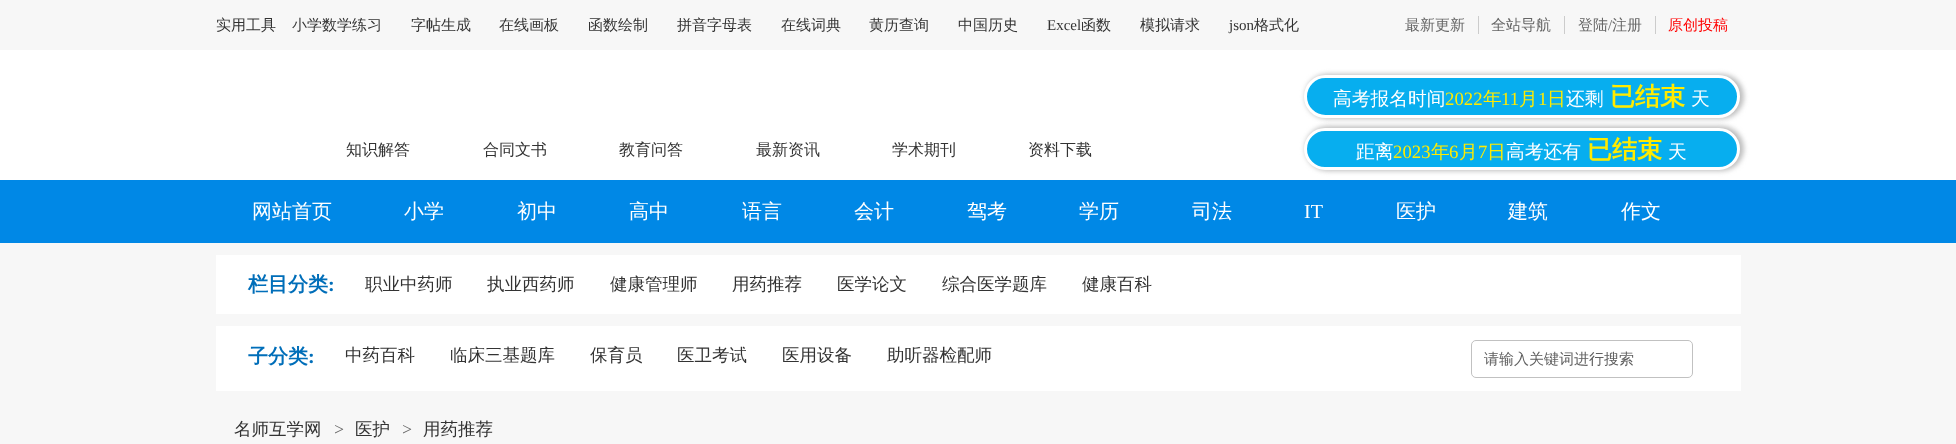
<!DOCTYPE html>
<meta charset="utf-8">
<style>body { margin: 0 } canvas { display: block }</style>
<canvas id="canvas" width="1956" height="444"></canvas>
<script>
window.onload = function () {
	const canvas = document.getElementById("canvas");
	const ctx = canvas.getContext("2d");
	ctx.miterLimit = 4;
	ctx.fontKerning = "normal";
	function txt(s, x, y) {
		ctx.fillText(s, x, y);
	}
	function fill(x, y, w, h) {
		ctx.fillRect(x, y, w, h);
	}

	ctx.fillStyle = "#F7F7F7";
	fill(0, 0, 1956, 444);
	ctx.fillStyle = "#CCCCCC";
	fill(1478, 16, 1, 18);
	fill(1564, 16, 1, 18);
	fill(1655, 16, 1, 18);
	ctx.fillStyle = "#FFFFFF";
	fill(0, 50, 1956, 130);
	ctx.fillStyle = "#BEBEBE";
	ctx.filter = "blur(2.5px)";
	ctx.beginPath();
	ctx.roundRect(1305, 74, 439, 45, 22.5);
	ctx.fill();
	ctx.filter = "none";
	ctx.fillStyle = "#07AEEF";
	ctx.beginPath();
	ctx.roundRect(1305.5, 76.5, 433, 40, 20);
	ctx.fill();
	ctx.strokeStyle = "#FFFFFF";
	ctx.lineWidth = 3;
	ctx.stroke();
	ctx.fillStyle = "#BEBEBE";
	ctx.filter = "blur(2.5px)";
	ctx.beginPath();
	ctx.roundRect(1305, 126, 439, 45, 22.5);
	ctx.fill();
	ctx.filter = "none";
	ctx.fillStyle = "#07AEEF";
	ctx.beginPath();
	ctx.roundRect(1305.5, 129.5, 433, 39, 19.5);
	ctx.fill();
	ctx.stroke();
	ctx.fillStyle = "#0088E6";
	fill(0, 180, 1956, 63);
	ctx.fillStyle = "#FFFFFF";
	fill(216, 255, 1525, 59);
	fill(216, 326, 1525, 65);
	ctx.beginPath();
	ctx.roundRect(1471.5, 340.5, 221, 37, 4.5);
	ctx.strokeStyle = "#C1C1C1";
	ctx.lineWidth = 1;
	ctx.stroke();
	ctx.font = "500 15px WenQuanYi Zen Hei";
	ctx.fillStyle = "#333333";
	txt("实用工具", 216, 30);
	txt("小学数学练习", 292, 30);
	txt("字帖生成", 411, 30);
	txt("在线画板", 499, 30);
	txt("函数绘制", 588, 30);
	txt("拼音字母表", 677, 30);
	txt("在线词典", 781, 30);
	txt("黄历查询", 869, 30);
	txt("中国历史", 958, 30);
	ctx.font = "15px Liberation Serif";
	txt("Excel", 1047, 30);
	ctx.font = "500 15px WenQuanYi Zen Hei";
	txt("函数", 1081, 30);
	txt("模拟请求", 1140, 30);
	ctx.font = "15px Liberation Serif";
	txt("json", 1229, 30);
	ctx.font = "500 15px WenQuanYi Zen Hei";
	txt("格式化", 1254, 30);
	ctx.fillStyle = "#666666";
	txt("最新更新", 1405, 30);
	txt("全站导航", 1491, 30);
	txt("登陆", 1578, 30);
	ctx.font = "15px Liberation Serif";
	txt("/", 1608, 30);
	ctx.font = "500 15px WenQuanYi Zen Hei";
	txt("注册", 1612, 30);
	ctx.fillStyle = "#FF0000";
	txt("原创投稿", 1668, 30);
	ctx.font = "500 16px WenQuanYi Zen Hei";
	ctx.fillStyle = "#333333";
	txt("知识解答", 346, 155);
	txt("合同文书", 483, 155);
	txt("教育问答", 619, 155);
	txt("最新资讯", 756, 155);
	txt("学术期刊", 892, 155);
	txt("资料下载", 1028, 155);
	ctx.font = "500 18.75px WenQuanYi Zen Hei";
	ctx.fillStyle = "#FFFFFF";
	txt("高考报名时间", 1333, 105);
	ctx.font = "18.75px Liberation Serif";
	ctx.fillStyle = "#FFEB00";
	txt("2022", 1445, 105);
	ctx.font = "500 18.75px WenQuanYi Zen Hei";
	txt("年", 1483, 105);
	ctx.font = "18.75px Liberation Serif";
	txt("11", 1501, 105);
	ctx.font = "500 18.75px WenQuanYi Zen Hei";
	txt("月", 1519, 105);
	ctx.font = "18.75px Liberation Serif";
	txt("1", 1538, 105);
	ctx.font = "500 18.75px WenQuanYi Zen Hei";
	txt("日", 1547, 105);
	ctx.fillStyle = "#FFFFFF";
	txt("还剩", 1566, 105);
	ctx.font = "bold 25px WenQuanYi Zen Hei";
	ctx.fillStyle = "#FFEB00";
	txt("已结束", 1610, 105);
	ctx.font = "500 18.75px WenQuanYi Zen Hei";
	ctx.fillStyle = "#FFFFFF";
	txt("天", 1691, 105);
	txt("距离", 1356, 158);
	ctx.font = "18.75px Liberation Serif";
	ctx.fillStyle = "#FFEB00";
	txt("2023", 1393, 158);
	ctx.font = "500 18.75px WenQuanYi Zen Hei";
	txt("年", 1431, 158);
	ctx.font = "18.75px Liberation Serif";
	txt("6", 1449, 158);
	ctx.font = "500 18.75px WenQuanYi Zen Hei";
	txt("月", 1459, 158);
	ctx.font = "18.75px Liberation Serif";
	txt("7", 1478, 158);
	ctx.font = "500 18.75px WenQuanYi Zen Hei";
	txt("日", 1487, 158);
	ctx.fillStyle = "#FFFFFF";
	txt("高考还有", 1506, 158);
	ctx.font = "bold 25px WenQuanYi Zen Hei";
	ctx.fillStyle = "#FFEB00";
	txt("已结束", 1587, 158);
	ctx.font = "500 18.75px WenQuanYi Zen Hei";
	ctx.fillStyle = "#FFFFFF";
	txt("天", 1668, 158);
	ctx.font = "500 20px WenQuanYi Zen Hei";
	txt("网站首页", 252, 218);
	txt("小学", 404, 218);
	txt("初中", 517, 218);
	txt("高中", 629, 218);
	txt("语言", 742, 218);
	txt("会计", 854, 218);
	txt("驾考", 967, 218);
	txt("学历", 1079, 218);
	txt("司法", 1192, 218);
	ctx.font = "20px Liberation Serif";
	txt("IT", 1304, 218);
	ctx.font = "500 20px WenQuanYi Zen Hei";
	txt("医护", 1396, 218);
	txt("建筑", 1508, 218);
	txt("作文", 1621, 218);
	ctx.font = "bold 20px WenQuanYi Zen Hei";
	ctx.fillStyle = "#006EB9";
	txt("栏目分类", 248, 291);
	ctx.font = "bold 20px Liberation Serif";
	txt(":", 328, 291);
	ctx.font = "500 17.5px WenQuanYi Zen Hei";
	ctx.fillStyle = "#333333";
	txt("职业中药师", 365, 290);
	txt("执业西药师", 487, 290);
	txt("健康管理师", 610, 290);
	txt("用药推荐", 732, 290);
	txt("医学论文", 837, 290);
	txt("综合医学题库", 942, 290);
	txt("健康百科", 1082, 290);
	ctx.font = "bold 20px WenQuanYi Zen Hei";
	ctx.fillStyle = "#006EB9";
	txt("子分类", 248, 363);
	ctx.font = "bold 20px Liberation Serif";
	txt(":", 308, 363);
	ctx.font = "500 17.5px WenQuanYi Zen Hei";
	ctx.fillStyle = "#333333";
	txt("中药百科", 345, 361);
	txt("临床三基题库", 450, 361);
	txt("保育员", 590, 361);
	txt("医卫考试", 677, 361);
	txt("医用设备", 782, 361);
	txt("助听器检配师", 887, 361);
	ctx.font = "500 15px WenQuanYi Zen Hei";
	ctx.fillStyle = "#606060";
	txt("请输入关键词进行搜索", 1484, 364);
	ctx.font = "500 17.5px WenQuanYi Zen Hei";
	ctx.fillStyle = "#333333";
	txt("名师互学网", 234, 435);
	ctx.font = "italic 17.5px Liberation Serif";
	ctx.fillStyle = "#666666";
	txt(">", 333, 435);
	ctx.font = "500 17.5px WenQuanYi Zen Hei";
	ctx.fillStyle = "#333333";
	txt("医护", 355, 435);
	ctx.font = "italic 17.5px Liberation Serif";
	ctx.fillStyle = "#666666";
	txt(">", 401, 435);
	ctx.font = "500 17.5px WenQuanYi Zen Hei";
	ctx.fillStyle = "#333333";
	txt("用药推荐", 423, 435);
};
</script>
